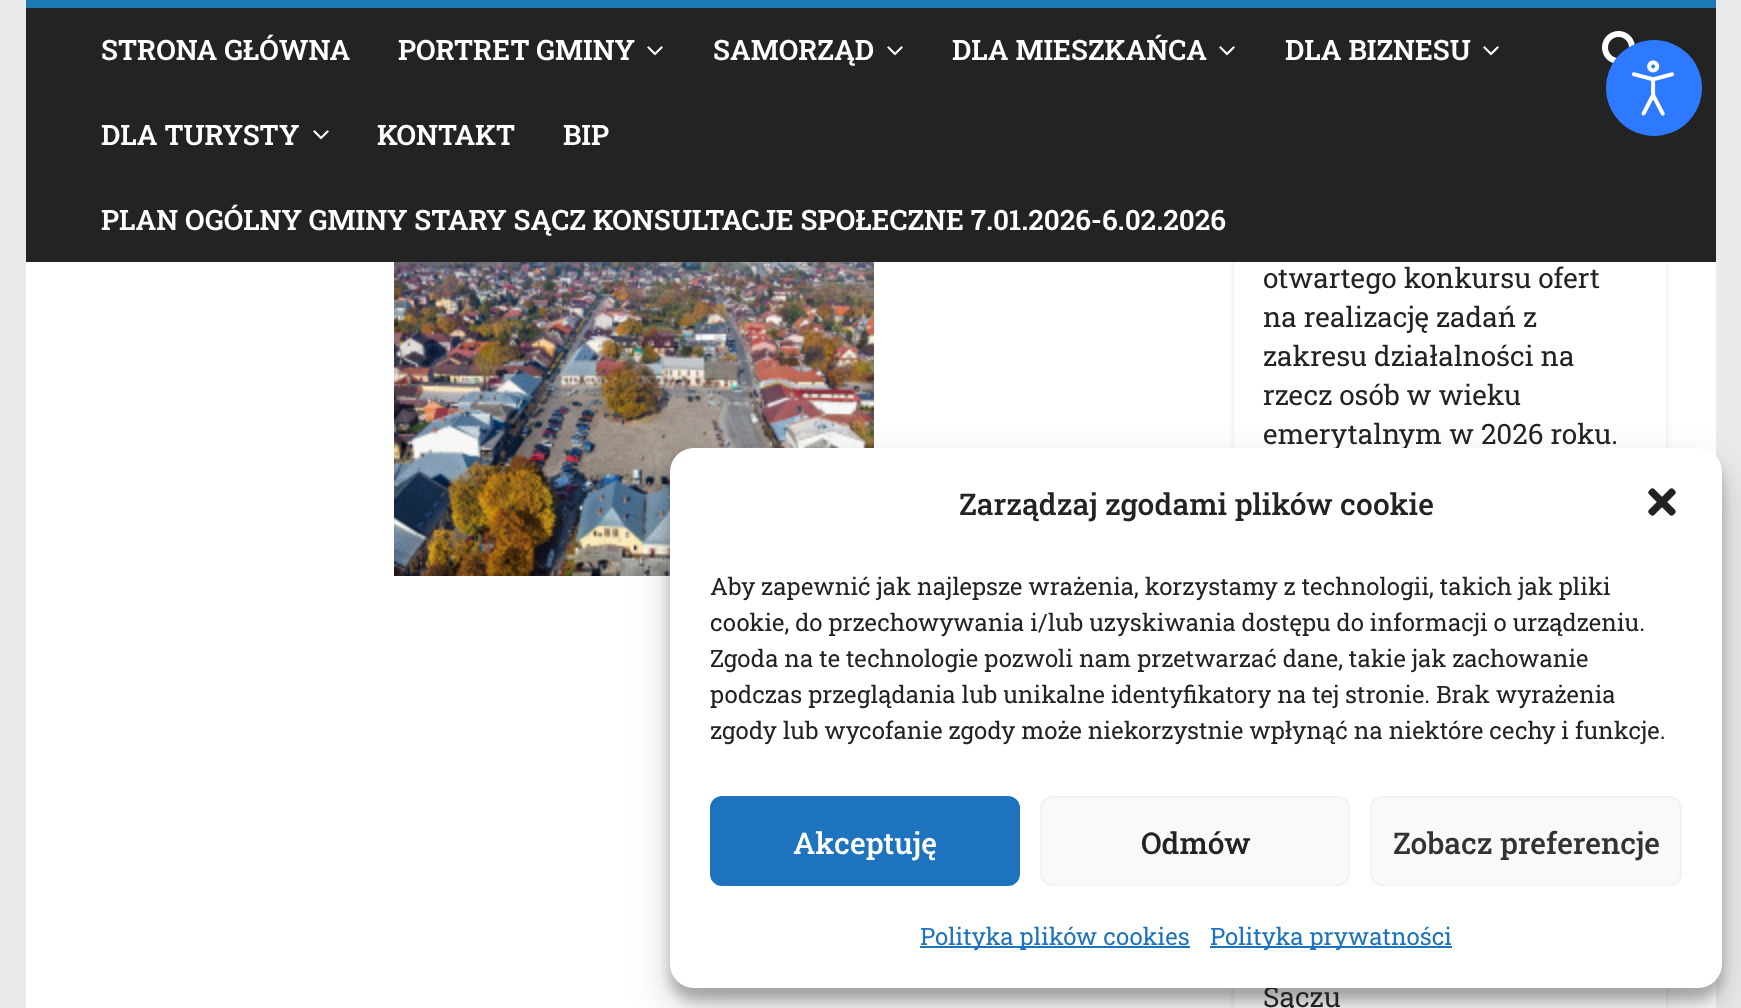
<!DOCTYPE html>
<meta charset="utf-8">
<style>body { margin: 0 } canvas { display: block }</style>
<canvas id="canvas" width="1741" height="1008"></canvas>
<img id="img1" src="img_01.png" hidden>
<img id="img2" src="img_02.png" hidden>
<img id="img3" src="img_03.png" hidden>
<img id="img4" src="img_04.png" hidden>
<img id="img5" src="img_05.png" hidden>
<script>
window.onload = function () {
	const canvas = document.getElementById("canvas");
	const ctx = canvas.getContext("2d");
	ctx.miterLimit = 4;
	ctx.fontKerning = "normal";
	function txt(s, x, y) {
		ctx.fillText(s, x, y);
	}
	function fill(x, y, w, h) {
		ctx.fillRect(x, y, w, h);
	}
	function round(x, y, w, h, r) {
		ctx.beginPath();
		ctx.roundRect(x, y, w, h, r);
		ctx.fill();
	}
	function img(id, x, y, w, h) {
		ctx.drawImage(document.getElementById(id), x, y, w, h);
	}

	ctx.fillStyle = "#EAEAEA";
	fill(0, 0, 1741, 1008);
	ctx.fillStyle = "#FFFFFF";
	fill(26, 262, 1690, 746);
	ctx.save();
	ctx.beginPath();
	ctx.moveTo(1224, 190);
	ctx.lineTo(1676, 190);
	ctx.lineTo(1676, 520);
	ctx.lineTo(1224, 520);
	ctx.closePath();
	ctx.moveTo(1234, 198);
	ctx.lineTo(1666, 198);
	ctx.lineTo(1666, 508);
	ctx.lineTo(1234, 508);
	ctx.closePath();
	ctx.clip("evenodd");
	ctx.fillStyle = "rgba(0, 0, 0, 0.1)";
	ctx.filter = "blur(3px)";
	ctx.beginPath();
	ctx.rect(1234, 200, 432, 310);
	ctx.fill();
	ctx.filter = "none";
	ctx.restore();
	ctx.fillStyle = "#232323";
	fill(26, 8, 1690, 254);
	ctx.fillStyle = "#1C79B4";
	fill(26, 0, 1690, 8);
	img("img1", 647, 46, 16, 10);
	img("img1", 887, 46, 16, 10);
	img("img1", 1219, 46, 16, 10);
	img("img1", 1483, 46, 16, 10);
	img("img1", 313, 130, 16, 10);
	img("img2", 1602, 31, 33, 32);
	img("img3", 394, 262, 480, 314);
	ctx.save();
	ctx.beginPath();
	ctx.moveTo(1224, 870);
	ctx.lineTo(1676, 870);
	ctx.lineTo(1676, 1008);
	ctx.lineTo(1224, 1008);
	ctx.closePath();
	ctx.moveTo(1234, 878);
	ctx.lineTo(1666, 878);
	ctx.lineTo(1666, 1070);
	ctx.lineTo(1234, 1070);
	ctx.closePath();
	ctx.clip("evenodd");
	ctx.fillStyle = "rgba(0, 0, 0, 0.1)";
	ctx.filter = "blur(3px)";
	ctx.beginPath();
	ctx.rect(1234, 880, 432, 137);
	ctx.fill();
	ctx.filter = "none";
	ctx.restore();
	ctx.fillStyle = "#2D79FF";
	ctx.beginPath();
	ctx.arc(1654, 88, 48, 0, Math.PI * 2);
	ctx.fill();
	img("img4", 1631, 60, 44, 56);
	ctx.fillStyle = "rgba(0, 0, 0, 0.23)";
	ctx.filter = "blur(6px)";
	ctx.beginPath();
	ctx.roundRect(670, 460, 1052, 540, 24);
	ctx.fill();
	ctx.filter = "none";
	ctx.fillStyle = "rgba(0, 0, 0, 0.19)";
	ctx.filter = "blur(20px)";
	ctx.beginPath();
	ctx.roundRect(670, 468, 1052, 540, 24);
	ctx.fill();
	ctx.filter = "none";
	ctx.font = "600 28px Roboto Slab";
	ctx.fillStyle = "#FFFFFF";
	txt("STRONA GŁÓWNA", 101, 60);
	txt("PORTRET GMINY", 398, 60);
	txt("SAMORZĄD", 713, 60);
	txt("DLA MIESZKAŃCA", 952, 60);
	txt("DLA BIZNESU", 1285, 60);
	txt("DLA TURYSTY", 101, 145);
	txt("KONTAKT", 377, 145);
	txt("BIP", 563, 145);
	txt("PLAN OGÓLNY GMINY STARY SĄCZ KONSULTACJE SPOŁECZNE 7.01.2026-6.02.2026", 101, 230);
	ctx.font = "28px Roboto Slab";
	ctx.fillStyle = "#232323";
	txt("otwartego konkursu ofert", 1263, 288);
	txt("na realizację zadań z", 1263, 327);
	txt("zakresu działalności na", 1263, 366);
	txt("rzecz osób w wieku", 1263, 405);
	txt("emerytalnym w 2026 roku.", 1263, 444);
	txt("Sączu", 1263, 1007);
	ctx.fillStyle = "#FFFFFF";
	round(670, 448, 1052, 540, 24);
	ctx.font = "500 30px Roboto Slab";
	ctx.fillStyle = "#232323";
	txt("Zarządzaj zgodami plików cookie", 959, 515);
	img("img5", 1648, 488, 28, 28);
	ctx.font = "24px Roboto Slab";
	txt("Aby zapewnić jak najlepsze wrażenia, korzystamy z technologii, takich jak pliki", 710, 595);
	txt("cookie, do przechowywania i/lub uzyskiwania dostępu do informacji o urządzeniu.", 710, 631);
	txt("Zgoda na te technologie pozwoli nam przetwarzać dane, takie jak zachowanie", 710, 667);
	txt("podczas przeglądania lub unikalne identyfikatory na tej stronie. Brak wyrażenia", 710, 703);
	txt("zgody lub wycofanie zgody może niekorzystnie wpłynąć na niektóre cechy i funkcje.", 710, 739);
	ctx.fillStyle = "#1E73BE";
	ctx.beginPath();
	ctx.roundRect(711, 797, 308, 88, 11);
	ctx.fill();
	ctx.strokeStyle = "#1E73BE";
	ctx.lineWidth = 2;
	ctx.stroke();
	ctx.font = "500 30px Roboto Slab";
	ctx.fillStyle = "#FFFFFF";
	txt("Akceptuję", 793, 854);
	ctx.fillStyle = "#F9F9F9";
	ctx.beginPath();
	ctx.roundRect(1041, 797, 308, 88, 11);
	ctx.fill();
	ctx.strokeStyle = "#F2F2F2";
	ctx.stroke();
	ctx.fillStyle = "#232323";
	txt("Odmów", 1141, 854);
	ctx.fillStyle = "#F9F9F9";
	ctx.beginPath();
	ctx.roundRect(1371, 797, 310, 88, 11);
	ctx.fill();
	ctx.stroke();
	ctx.fillStyle = "#333333";
	txt("Zobacz preferencje", 1393, 854);
	ctx.fillStyle = "#1E73BE";
	fill(920, 946, 270, 2);
	ctx.font = "24px Roboto Slab";
	txt("Polityka plików cookies", 920, 945);
	fill(1210, 946, 242, 2);
	txt("Polityka prywatności", 1210, 945);
};
</script>
